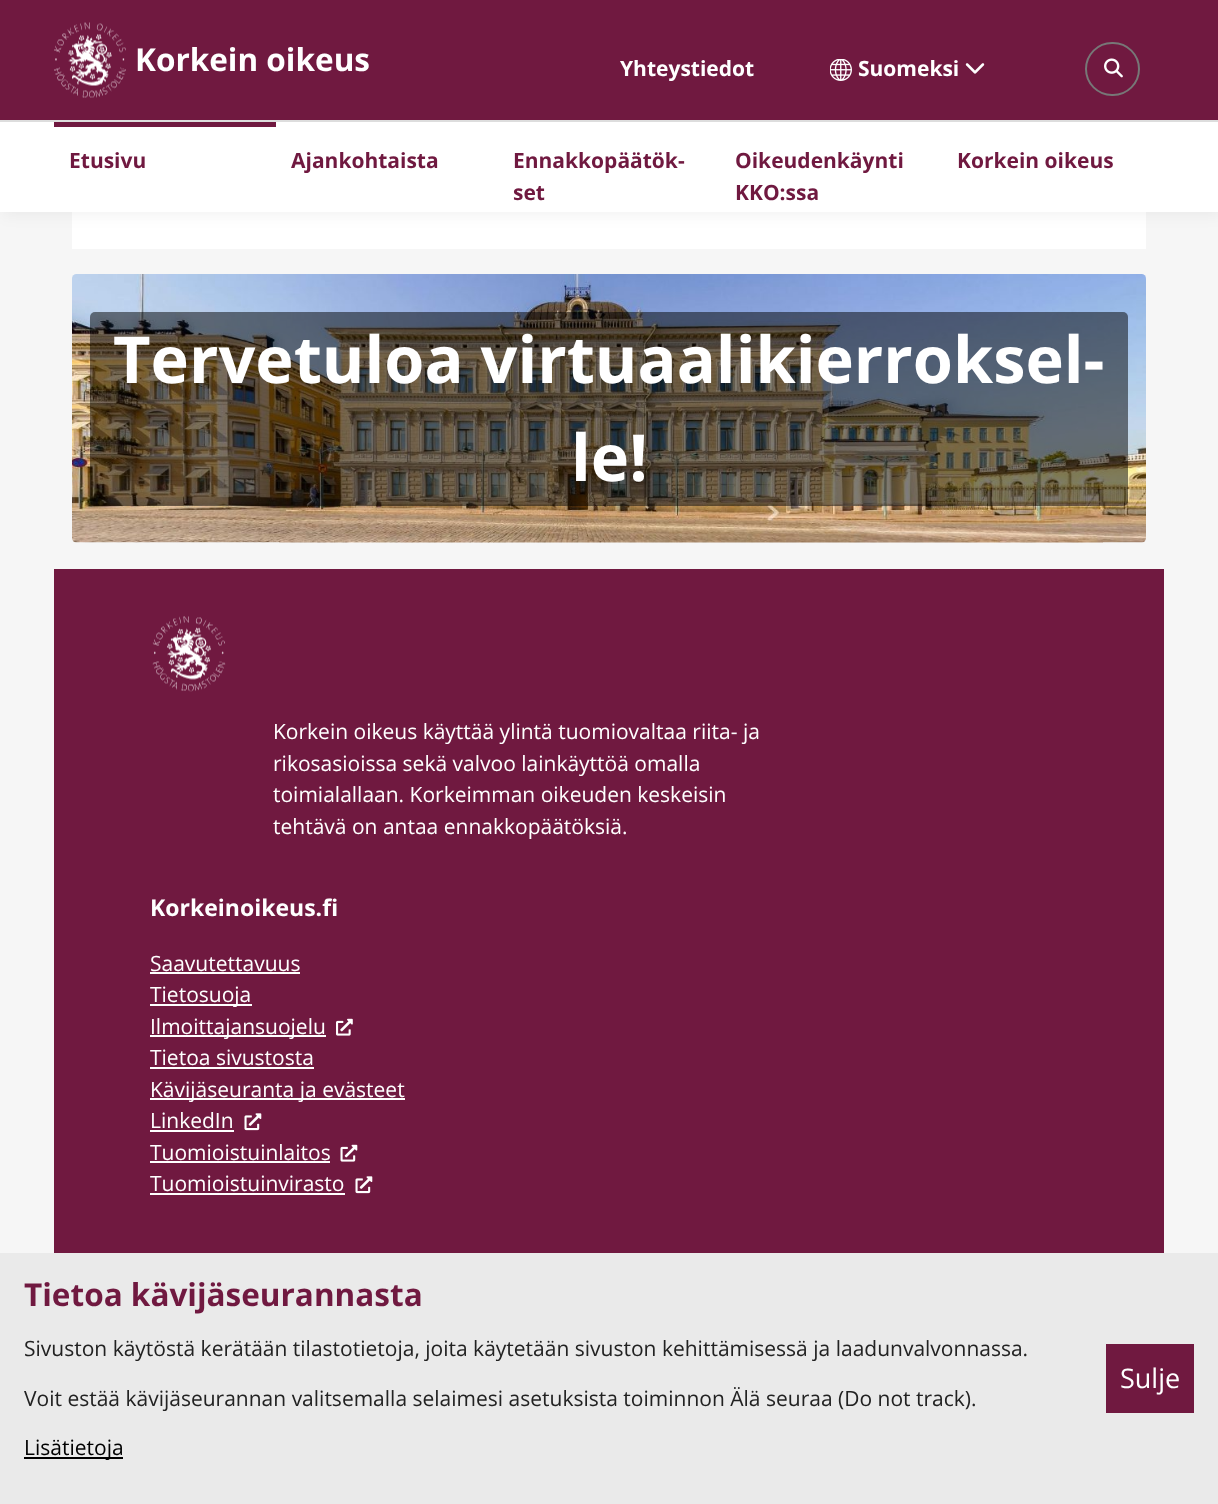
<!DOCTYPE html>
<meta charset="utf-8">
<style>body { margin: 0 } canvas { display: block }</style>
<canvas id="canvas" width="1218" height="1504"></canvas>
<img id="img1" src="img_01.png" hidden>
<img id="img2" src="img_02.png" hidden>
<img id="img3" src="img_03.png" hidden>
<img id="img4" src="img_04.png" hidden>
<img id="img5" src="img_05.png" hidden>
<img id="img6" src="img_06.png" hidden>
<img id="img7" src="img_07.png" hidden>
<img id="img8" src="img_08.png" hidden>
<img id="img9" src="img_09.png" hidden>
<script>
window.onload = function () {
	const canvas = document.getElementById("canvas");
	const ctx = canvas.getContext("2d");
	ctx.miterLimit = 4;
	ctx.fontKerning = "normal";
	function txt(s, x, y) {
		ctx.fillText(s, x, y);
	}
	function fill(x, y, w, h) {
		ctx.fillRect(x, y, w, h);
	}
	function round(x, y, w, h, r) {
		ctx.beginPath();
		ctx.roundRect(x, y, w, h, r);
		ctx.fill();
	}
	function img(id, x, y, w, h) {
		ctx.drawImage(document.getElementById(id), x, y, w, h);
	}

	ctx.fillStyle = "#F6F6F6";
	fill(0, 0, 1218, 1504);
	ctx.fillStyle = "#FFFFFF";
	fill(72, 212, 1074, 37);
	ctx.fillStyle = "rgba(0, 0, 0, 0.05)";
	ctx.filter = "blur(7.5px)";
	ctx.beginPath();
	ctx.rect(3, 125, 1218, 90);
	ctx.fill();
	ctx.filter = "none";
	ctx.fillStyle = "#701940";
	fill(0, 0, 1218, 120);
	ctx.fillStyle = "#DDDDDD";
	fill(0, 120, 1218, 2);
	img("img1", 54, 22, 72, 76);
	img("img2", 830, 59, 22, 22);
	img("img3", 965, 63, 20, 11);
	ctx.beginPath();
	ctx.roundRect(1086, 43, 53, 52, 26);
	ctx.strokeStyle = "#777777";
	ctx.lineWidth = 2;
	ctx.stroke();
	img("img4", 1104, 58, 19, 20);
	ctx.fillStyle = "#FFFFFF";
	fill(0, 122, 1218, 90);
	ctx.fillStyle = "#701940";
	fill(54, 122, 222, 5);
	img("img5", 72, 274, 1074, 269);
	ctx.fillStyle = "rgba(0, 0, 0, 0.5)";
	round(90, 312, 1038, 194, 5);
	ctx.fillStyle = "#701940";
	fill(54, 569, 1110, 684);
	img("img6", 152, 616, 74, 76);
	ctx.fillStyle = "#FFFFFF";
	fill(150, 972, 150, 2);
	fill(150, 1004, 102, 2);
	fill(150, 1035, 176, 2);
	img("img7", 336, 1018, 17, 18);
	fill(150, 1067, 164, 2);
	fill(150, 1098, 255, 2);
	fill(150, 1130, 84, 2);
	img("img8", 244, 1113, 18, 18);
	fill(150, 1161, 180, 2);
	img("img9", 340, 1144, 18, 18);
	fill(150, 1193, 195, 2);
	img("img8", 355, 1176, 18, 18);
	ctx.fillStyle = "#EAEAEA";
	fill(0, 1253, 1218, 251);
	ctx.fillStyle = "#000000";
	fill(24, 1457, 99, 2);
	ctx.fillStyle = "#701940";
	fill(1106, 1344, 88, 69);
	ctx.font = "bold 31.5px Open Sans";
	ctx.fillStyle = "#FFFFFF";
	txt("Korkein oikeus", 135, 71);
	ctx.font = "bold 21px Open Sans";
	txt("Yhteystiedot", 620, 76);
	txt("Suomeksi", 858, 76);
	ctx.fillStyle = "#701940";
	txt("Etusivu", 69, 168);
	txt("Ajankohtaista", 291, 168);
	txt("Ennakkopäätök-", 513, 168);
	txt("set", 513, 200);
	txt("Oikeudenkäynti", 735, 168);
	txt("KKO:ssa", 735, 200);
	txt("Korkein oikeus", 957, 168);
	ctx.font = "bold 64.9px Open Sans";
	ctx.fillStyle = "#FFFFFF";
	txt("Tervetuloa virtuaalikierroksel-", 113, 383);
	txt("le!", 571, 481);
	ctx.font = "21px Open Sans";
	txt("Korkein oikeus käyttää ylintä tuomiovaltaa riita- ja", 273, 739);
	txt("rikosasioissa sekä valvoo lainkäyttöä omalla", 273, 771);
	txt("toimialallaan. Korkeimman oikeuden keskeisin", 273, 802);
	txt("tehtävä on antaa ennakkopäätöksiä.", 273, 834);
	ctx.font = "bold 23px Open Sans";
	txt("Korkeinoikeus.fi", 150, 916);
	ctx.font = "21px Open Sans";
	txt("Saavutettavuus", 150, 971);
	txt("Tietosuoja", 150, 1002);
	txt("Ilmoittajansuojelu", 150, 1034);
	txt("Tietoa sivustosta", 150, 1065);
	txt("Kävijäseuranta ja evästeet", 150, 1097);
	txt("LinkedIn", 150, 1128);
	txt("Tuomioistuinlaitos", 150, 1160);
	txt("Tuomioistuinvirasto", 150, 1191);
	ctx.font = "bold 31.5px Open Sans";
	ctx.fillStyle = "#701940";
	txt("Tietoa kävijäseurannasta", 24, 1306);
	ctx.font = "21px Open Sans";
	ctx.fillStyle = "#222222";
	txt("Sivuston käytöstä kerätään tilastotietoja, joita käytetään sivuston kehittämisessä ja laadunvalvonnassa.", 24, 1356);
	txt("Voit estää kävijäseurannan valitsemalla selaimesi asetuksista toiminnon Älä seuraa (Do not track).", 24, 1406);
	ctx.fillStyle = "#000000";
	txt("Lisätietoja", 24, 1455);
	ctx.font = "27px Open Sans";
	ctx.fillStyle = "#FFFFFF";
	txt("Sulje", 1120, 1388);
};
</script>
